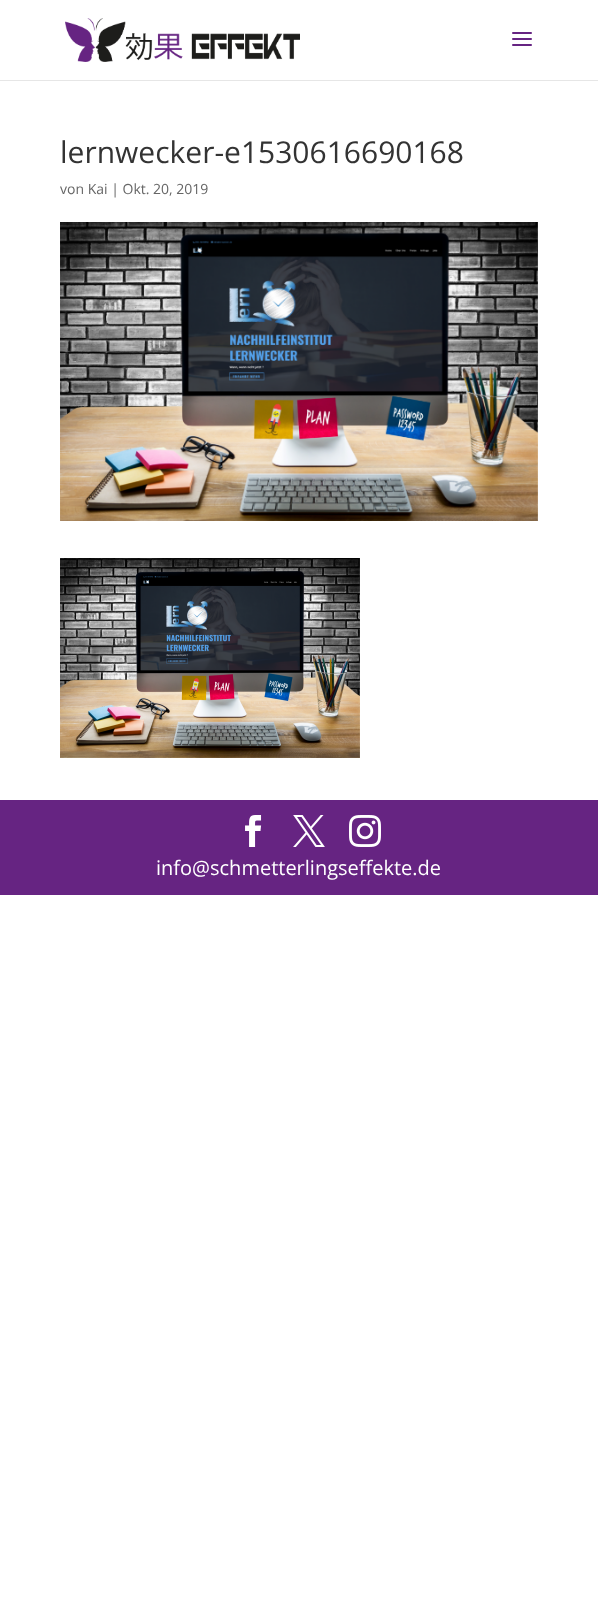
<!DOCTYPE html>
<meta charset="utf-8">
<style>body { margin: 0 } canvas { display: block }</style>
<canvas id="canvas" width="598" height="1617"></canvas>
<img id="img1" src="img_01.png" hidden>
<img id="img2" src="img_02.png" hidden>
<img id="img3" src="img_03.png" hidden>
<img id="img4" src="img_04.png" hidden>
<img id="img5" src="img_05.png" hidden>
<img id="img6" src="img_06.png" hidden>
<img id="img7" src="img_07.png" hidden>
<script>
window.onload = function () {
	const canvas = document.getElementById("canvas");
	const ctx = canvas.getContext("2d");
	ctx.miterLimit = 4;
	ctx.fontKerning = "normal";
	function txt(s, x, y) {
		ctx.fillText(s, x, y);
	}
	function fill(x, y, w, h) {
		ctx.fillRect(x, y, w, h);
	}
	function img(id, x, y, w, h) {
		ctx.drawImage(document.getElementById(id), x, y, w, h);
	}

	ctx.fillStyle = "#FFFFFF";
	fill(0, 0, 598, 1617);
	ctx.fillStyle = "#E6E6E6";
	fill(0, 80, 598, 1);
	img("img1", 65, 18, 235, 44);
	img("img2", 512, 32, 20, 14);
	img("img3", 60, 222, 478, 299);
	img("img4", 60, 558, 300, 200);
	ctx.fillStyle = "#662482";
	fill(0, 800, 598, 95);
	img("img5", 245, 815, 17, 32);
	img("img6", 293, 815, 32, 32);
	img("img7", 349, 815, 32, 32);
	ctx.font = "30px Open Sans";
	ctx.fillStyle = "#333333";
	txt("lernwecker-e1530616690168", 60, 163);
	ctx.font = "14px Open Sans";
	ctx.fillStyle = "#666666";
	txt("von Kai | Okt. 20, 2019", 60, 194);
	ctx.font = "20px Open Sans";
	ctx.fillStyle = "#FFFFFF";
	txt("info@schmetterlingseffekte.de", 156, 875);
};
</script>
